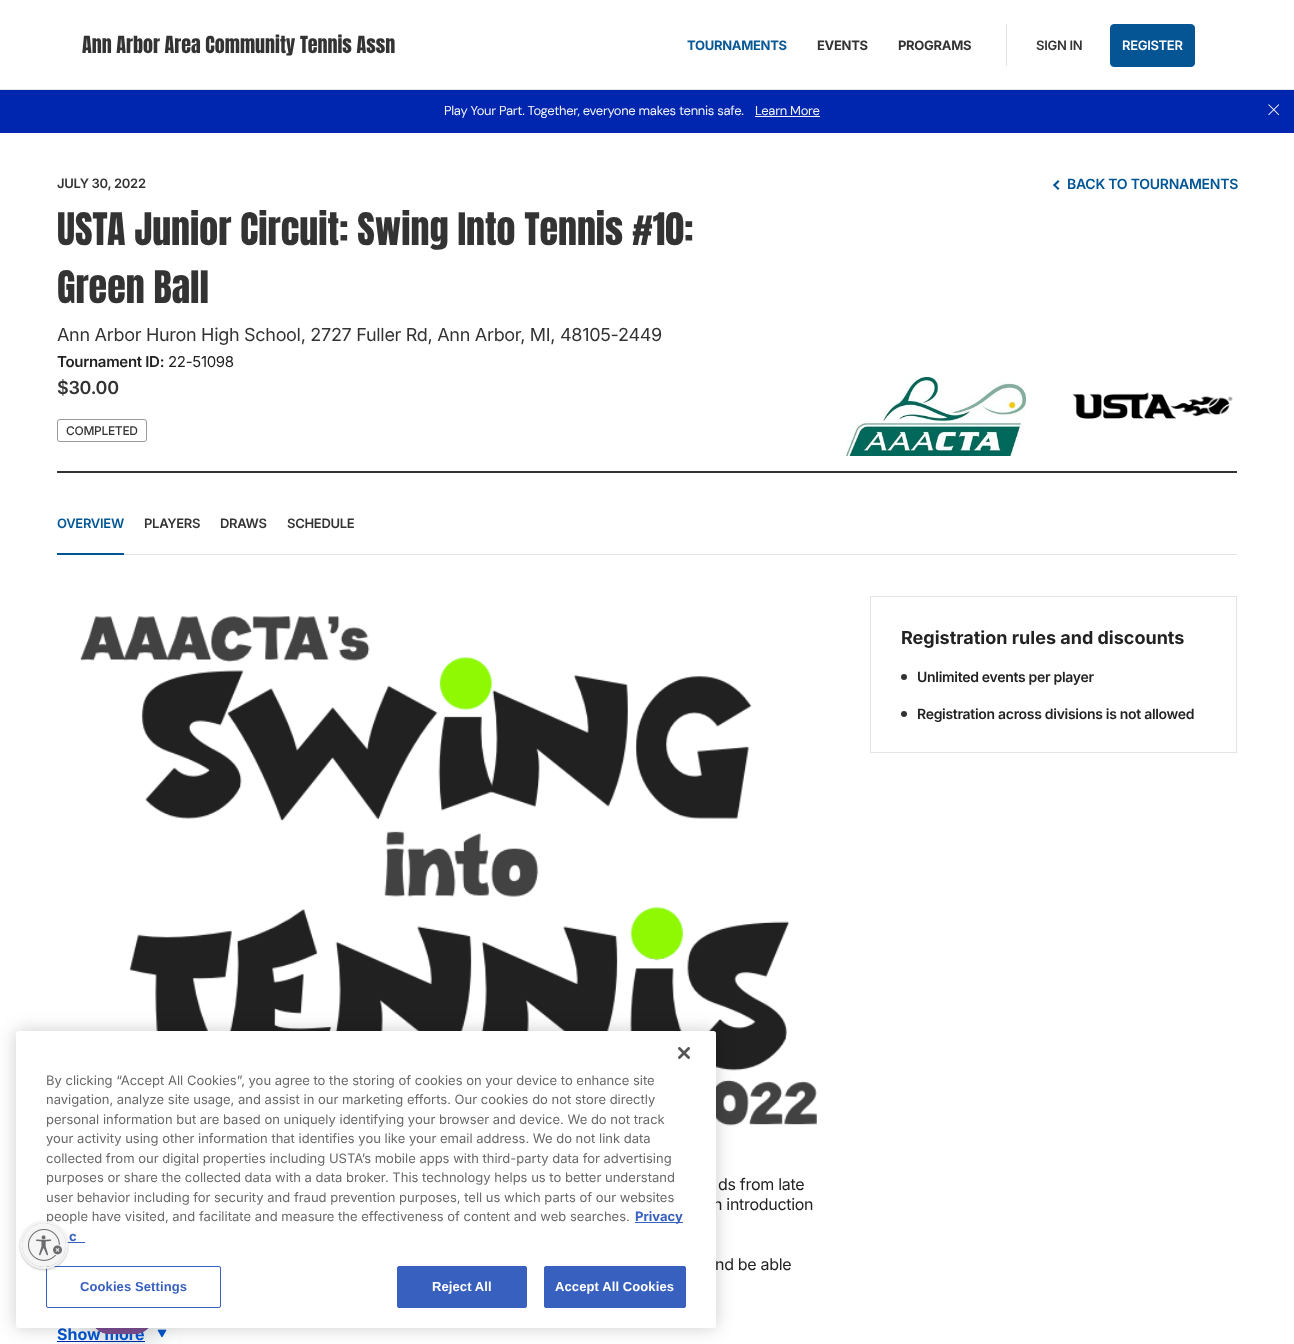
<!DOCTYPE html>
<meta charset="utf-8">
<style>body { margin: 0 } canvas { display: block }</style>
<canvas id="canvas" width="1294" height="1344"></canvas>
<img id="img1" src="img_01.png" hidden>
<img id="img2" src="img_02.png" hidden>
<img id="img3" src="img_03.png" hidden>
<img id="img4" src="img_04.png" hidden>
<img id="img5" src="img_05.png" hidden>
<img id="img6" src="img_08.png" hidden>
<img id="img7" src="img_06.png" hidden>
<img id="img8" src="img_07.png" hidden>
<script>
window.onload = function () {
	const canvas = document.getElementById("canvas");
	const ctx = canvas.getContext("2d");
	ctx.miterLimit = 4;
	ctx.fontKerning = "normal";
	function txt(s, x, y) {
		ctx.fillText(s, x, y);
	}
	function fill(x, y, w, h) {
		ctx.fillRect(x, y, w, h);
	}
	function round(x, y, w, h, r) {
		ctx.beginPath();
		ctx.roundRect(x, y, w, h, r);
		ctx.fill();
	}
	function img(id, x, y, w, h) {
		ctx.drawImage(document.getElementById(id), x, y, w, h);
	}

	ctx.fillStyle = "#FFFFFF";
	fill(0, 0, 1294, 1344);
	ctx.fillStyle = "#E4E4E4";
	fill(0, 89, 1294, 1);
	ctx.fillStyle = "#E2E2E2";
	fill(1006, 24, 1, 42);
	ctx.fillStyle = "#055594";
	ctx.beginPath();
	ctx.roundRect(1110.5, 24.5, 84, 42, 3.5);
	ctx.fill();
	ctx.strokeStyle = "#055594";
	ctx.stroke();
	ctx.fillStyle = "#0026AF";
	fill(0, 90, 1294, 43);
	ctx.fillStyle = "#F3F3F5";
	fill(755, 116, 65, 1);
	img("img1", 1268, 104, 12, 12);
	ctx.fillStyle = "#333333";
	fill(57, 471, 1180, 2);
	ctx.beginPath();
	ctx.roundRect(57.5, 419.5, 89, 22, 2.5);
	ctx.strokeStyle = "#999999";
	ctx.stroke();
	ctx.fillStyle = "#005595";
	ctx.beginPath();
	ctx.moveTo(1054.5, 184);
	ctx.lineTo(1059.5, 188.5);
	ctx.lineTo(1058, 190);
	ctx.lineTo(1053, 185);
	ctx.closePath();
	ctx.fill();
	ctx.beginPath();
	ctx.moveTo(1058, 180);
	ctx.lineTo(1059.5, 181.5);
	ctx.lineTo(1054.5, 186.5);
	ctx.lineTo(1053, 185);
	ctx.closePath();
	ctx.fill();
	img("img2", 846, 377, 180, 79);
	img("img3", 1072, 392, 161, 27);
	ctx.fillStyle = "#E4E4E4";
	fill(124, 554, 1113, 1);
	ctx.fillStyle = "#005595";
	fill(57, 553, 67, 2);
	ctx.strokeStyle = "#E4E4E4";
	ctx.strokeRect(870.5, 596.5, 366, 156);
	ctx.fillStyle = "#333333";
	ctx.beginPath();
	ctx.arc(904, 677, 3, 0, Math.PI * 2);
	ctx.fill();
	ctx.beginPath();
	ctx.arc(904, 714, 3, 0, Math.PI * 2);
	ctx.fill();
	img("img4", 62, 616, 755, 517);
	ctx.fillStyle = "#0026AF";
	fill(57, 1341, 88, 1);
	img("img5", 157, 1329, 10, 9);
	ctx.fillStyle = "rgba(23, 73, 77, 0.15)";
	ctx.filter = "blur(15px)";
	ctx.beginPath();
	ctx.roundRect(90, 1290, 64, 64, 20);
	ctx.fill();
	ctx.filter = "none";
	ctx.font = "20px Anton";
	ctx.fillStyle = "#333333";
	txt("Ann Arbor Area Community Tennis Assn", 82, 53);
	ctx.letterSpacing = "-0.3px";
	ctx.font = "bold 13px Inter";
	ctx.fillStyle = "#095896";
	txt("TOURNAMENTS", 687, 50);
	ctx.fillStyle = "#333333";
	txt("EVENTS", 817, 50);
	txt("PROGRAMS", 898, 50);
	ctx.font = "600 13px Inter";
	txt("SIGN IN", 1036, 50);
	ctx.fillStyle = "#FFFFFF";
	txt("REGISTER", 1122, 50);
	ctx.font = "13px DM Sans";
	ctx.fillStyle = "#F3F3F5";
	txt("Play Your Part. Together, everyone makes tennis safe.", 444, 115);
	txt("Learn More", 755, 115);
	ctx.font = "600 13px Inter";
	ctx.fillStyle = "#333333";
	txt("JULY 30, 2022", 57, 188);
	ctx.letterSpacing = "0px";
	ctx.font = "38px Anton";
	txt("USTA Junior Circuit: Swing Into Tennis #10:", 57, 245);
	txt("Green Ball", 57, 303);
	ctx.letterSpacing = "-0.3px";
	ctx.font = "18px Inter";
	txt("Ann Arbor Huron High School, 2727 Fuller Rd, Ann Arbor, MI, 48105-2449", 57, 341);
	ctx.font = "600 15px Inter";
	ctx.fillStyle = "#222222";
	txt("Tournament ID:", 57, 367);
	ctx.font = "15px Inter";
	txt("22-51098", 168, 367);
	ctx.font = "600 18px Inter";
	ctx.fillStyle = "#333333";
	txt("$30.00", 57, 394);
	ctx.font = "500 12px Inter";
	txt("COMPLETED", 66, 435);
	ctx.letterSpacing = "-0.25px";
	ctx.font = "600 14px Inter";
	ctx.fillStyle = "#005595";
	txt("BACK TO TOURNAMENTS", 1067, 189);
	ctx.letterSpacing = "-0.3px";
	ctx.font = "600 13px Inter";
	txt("OVERVIEW", 57, 528);
	ctx.fillStyle = "#333333";
	txt("PLAYERS", 144, 528);
	txt("DRAWS", 220, 528);
	txt("SCHEDULE", 287, 528);
	ctx.letterSpacing = "0px";
	ctx.font = "bold 18px Inter";
	ctx.fillStyle = "#222222";
	txt("Registration rules and discounts", 901, 644);
	ctx.letterSpacing = "-0.3px";
	ctx.font = "600 14px Inter";
	txt("Unlimited events per player", 917, 682);
	txt("Registration across divisions is not allowed", 917, 719);
	ctx.font = "16px Inter";
	txt("ds from late", 718, 1190);
	txt("n introduction", 713, 1210);
	txt("nd be able", 715, 1270);
	ctx.letterSpacing = "0px";
	ctx.font = "bold 16px Inter";
	ctx.fillStyle = "#0056D0";
	txt("Show more", 57, 1340);
	img("img6", 95, 1328, 54, 6);
	ctx.fillStyle = "rgba(0, 0, 0, 0.2)";
	ctx.filter = "blur(9px)";
	ctx.beginPath();
	ctx.roundRect(16, 1031, 700, 297, 2.5);
	ctx.fill();
	ctx.filter = "none";
	ctx.fillStyle = "#FFFFFF";
	round(16, 1031, 700, 297, 2.5);
	ctx.beginPath();
	ctx.roundRect(46.5, 1266.5, 174, 41, 1.5);
	ctx.strokeStyle = "#3860BE";
	ctx.stroke();
	ctx.fillStyle = "#3860BE";
	fill(65, 1242, 20, 1);
	ctx.fillStyle = "rgba(0, 0, 0, 0.24)";
	ctx.filter = "blur(1px)";
	ctx.beginPath();
	ctx.roundRect(20, 1222, 48, 48, 24);
	ctx.fill();
	ctx.filter = "none";
	ctx.font = "13px Inter";
	ctx.fillStyle = "#696969";
	txt("people have visited, and facilitate and measure the effectiveness of content and web searches.", 46, 1221);
	ctx.beginPath();
	ctx.arc(44, 1245, 23, 0, Math.PI * 2);
	ctx.strokeStyle = "#F5F5F5";
	ctx.lineWidth = 2;
	ctx.stroke();
	ctx.save();
	ctx.beginPath();
	ctx.roundRect(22, 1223, 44, 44, 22);
	ctx.clip();
	ctx.fillStyle = "rgba(0, 0, 0, 0.24)";
	ctx.filter = "blur(1px)";
	ctx.beginPath();
	ctx.roundRect(22, 1224, 44, 44, 22);
	ctx.fill();
	ctx.filter = "none";
	ctx.restore();
	ctx.fillStyle = "#F5F5F5";
	ctx.beginPath();
	ctx.arc(44, 1245, 22, 0, Math.PI * 2);
	ctx.fill();
	img("img7", 28, 1229, 34, 32);
	img("img8", 678, 1047, 12, 12);
	ctx.letterSpacing = "0.1px";
	ctx.font = "bold 13px Liberation Sans";
	ctx.fillStyle = "#3860BE";
	txt("Cookies Settings", 80, 1291);
	ctx.beginPath();
	ctx.roundRect(544.5, 1266.5, 141, 41, 1.5);
	ctx.fill();
	ctx.strokeStyle = "#3860BE";
	ctx.lineWidth = 1;
	ctx.stroke();
	ctx.fillStyle = "#FFFFFF";
	txt("Accept All Cookies", 555, 1291);
	ctx.fillStyle = "#3860BE";
	ctx.beginPath();
	ctx.roundRect(397.5, 1266.5, 129, 41, 1.5);
	ctx.fill();
	ctx.stroke();
	ctx.fillStyle = "#FFFFFF";
	txt("Reject All", 432, 1291);
	ctx.letterSpacing = "0px";
	ctx.font = "bold 13px Inter";
	ctx.fillStyle = "#3860BE";
	txt("c", 69, 1241);
	fill(635, 1222, 48, 1);
	txt("Privacy", 635, 1221);
	ctx.font = "13px Inter";
	ctx.fillStyle = "#696969";
	txt("user behavior including for security and fraud prevention purposes, tell us which parts of our websites", 46, 1202);
	txt("purposes or share the collected data with a data broker. This technology helps us to better understand", 46, 1182);
	txt("collected from our digital properties including USTA’s mobile apps with third-party data for advertising", 46, 1163);
	txt("your activity using other information that identifies you like your email address. We do not link data", 46, 1143);
	txt("personal information but are based on uniquely identifying your browser and device. We do not track", 46, 1124);
	txt("navigation, analyze site usage, and assist in our marketing efforts. Our cookies do not store directly", 46, 1104);
	txt("By clicking “Accept All Cookies”, you agree to the storing of cookies on your device to enhance site", 46, 1085);
};
</script>
